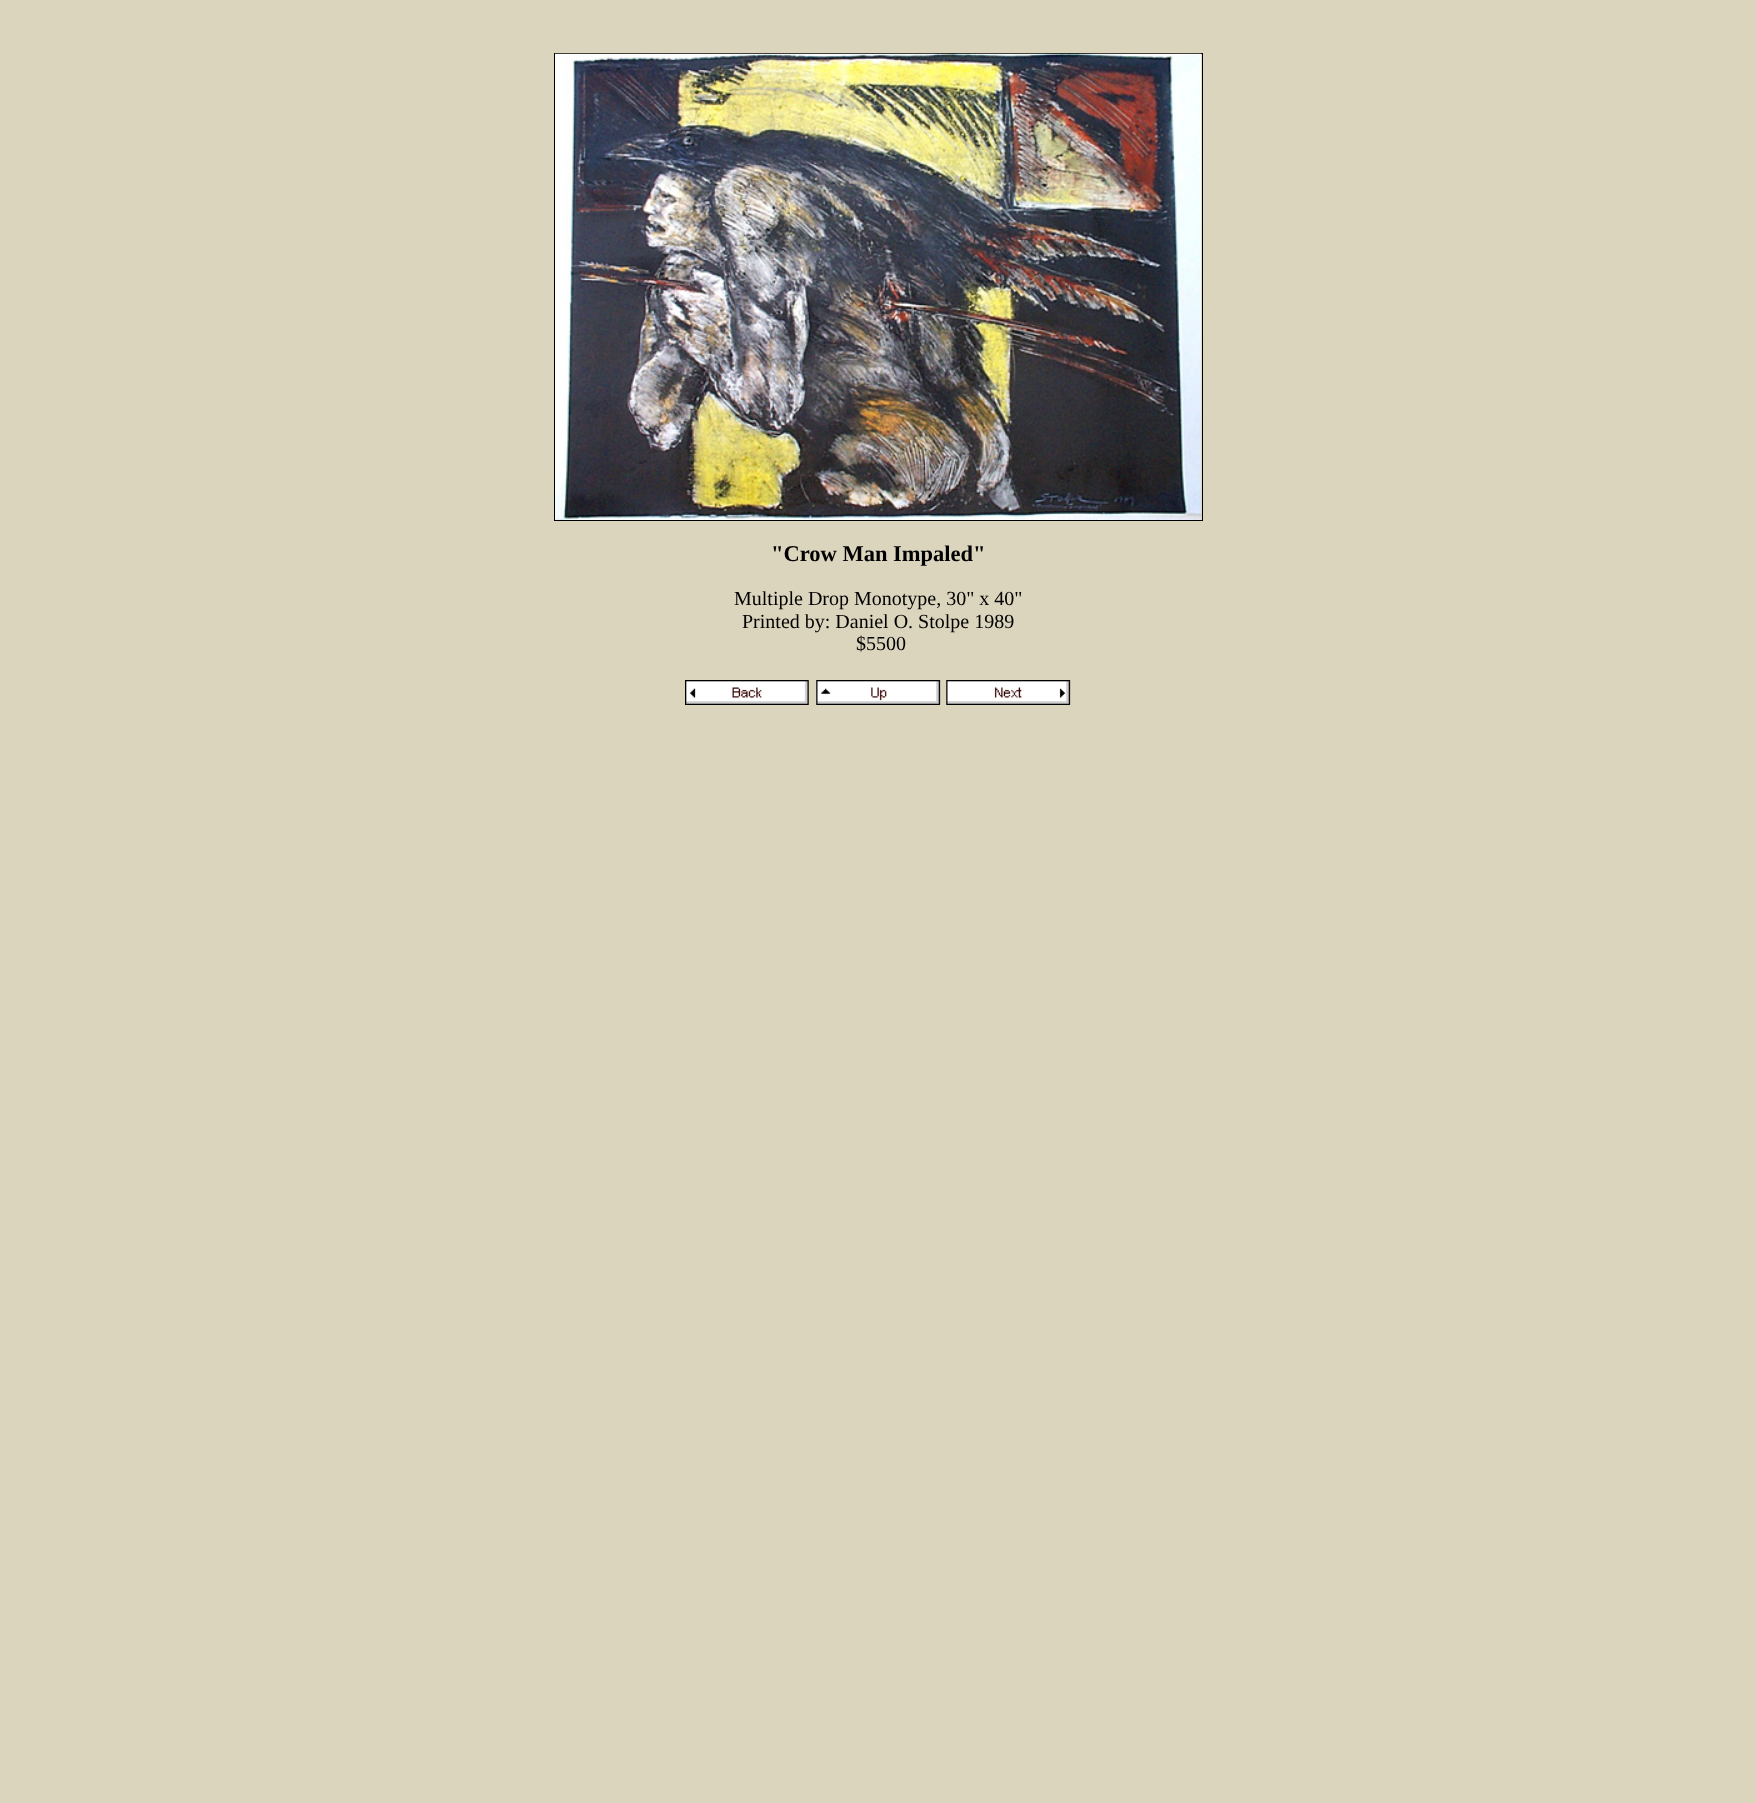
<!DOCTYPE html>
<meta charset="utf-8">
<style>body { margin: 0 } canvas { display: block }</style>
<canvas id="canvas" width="1756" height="1803"></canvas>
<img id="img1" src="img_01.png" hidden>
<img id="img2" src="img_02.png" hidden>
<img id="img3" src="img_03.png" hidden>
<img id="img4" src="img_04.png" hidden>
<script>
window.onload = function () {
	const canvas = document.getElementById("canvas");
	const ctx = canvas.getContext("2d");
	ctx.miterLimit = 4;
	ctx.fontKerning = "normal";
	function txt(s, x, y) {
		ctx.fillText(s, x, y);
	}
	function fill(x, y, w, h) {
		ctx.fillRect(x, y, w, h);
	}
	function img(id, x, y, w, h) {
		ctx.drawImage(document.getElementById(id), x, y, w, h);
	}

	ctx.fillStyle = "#DBD5BD";
	fill(0, 0, 1756, 1803);
	ctx.strokeStyle = "#000000";
	ctx.strokeRect(554.5, 53.5, 648, 467);
	img("img1", 555, 53, 647, 467);
	img("img2", 685, 680, 124, 25);
	img("img3", 816, 680, 125, 25);
	img("img4", 946, 680, 125, 25);
	ctx.font = "bold 22.5px Liberation Serif";
	ctx.fillStyle = "#000000";
	txt("\"Crow Man Impaled\"", 771, 561);
	ctx.font = "20px Liberation Serif";
	txt("Multiple Drop Monotype, 30\" x 40\"", 734, 605);
	txt("Printed by: Daniel O. Stolpe 1989", 742, 628);
	txt("$5500", 856, 650);
};
</script>
